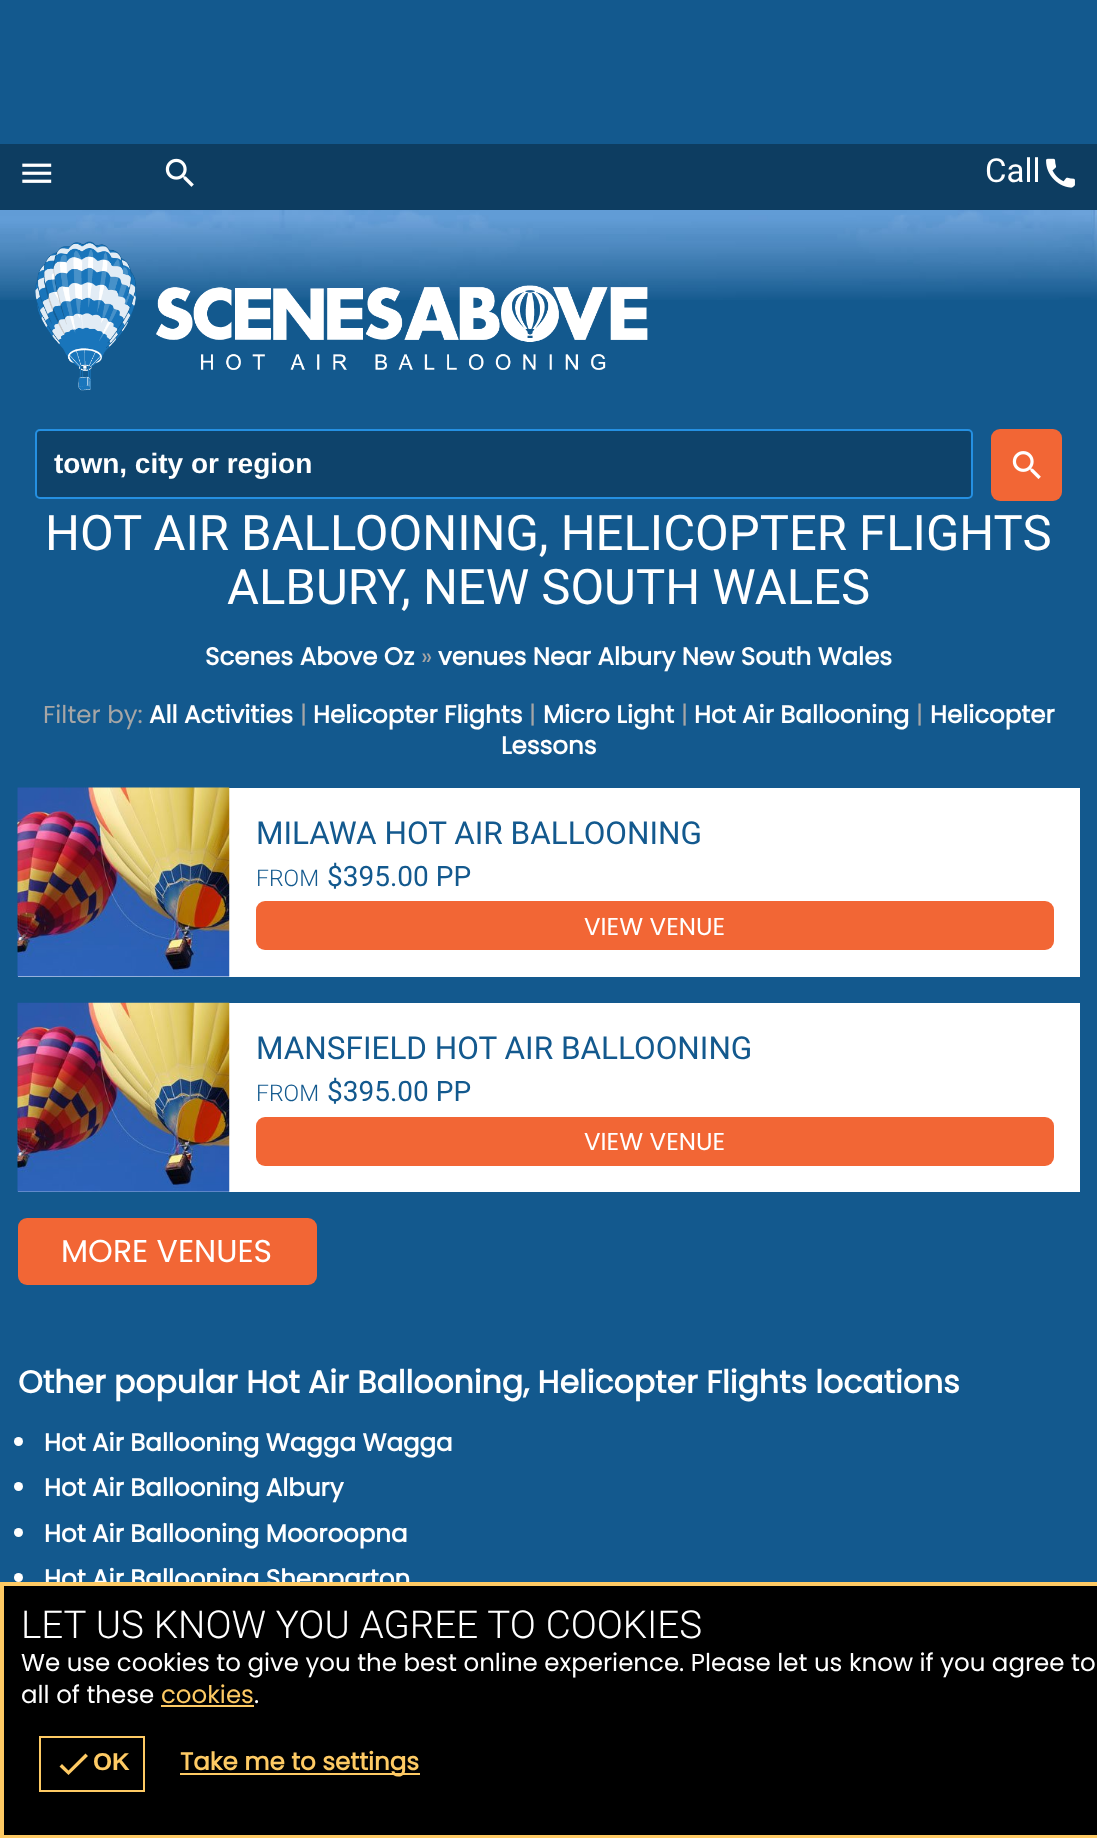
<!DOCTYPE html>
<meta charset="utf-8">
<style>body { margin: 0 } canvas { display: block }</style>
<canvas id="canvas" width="1097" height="1838"></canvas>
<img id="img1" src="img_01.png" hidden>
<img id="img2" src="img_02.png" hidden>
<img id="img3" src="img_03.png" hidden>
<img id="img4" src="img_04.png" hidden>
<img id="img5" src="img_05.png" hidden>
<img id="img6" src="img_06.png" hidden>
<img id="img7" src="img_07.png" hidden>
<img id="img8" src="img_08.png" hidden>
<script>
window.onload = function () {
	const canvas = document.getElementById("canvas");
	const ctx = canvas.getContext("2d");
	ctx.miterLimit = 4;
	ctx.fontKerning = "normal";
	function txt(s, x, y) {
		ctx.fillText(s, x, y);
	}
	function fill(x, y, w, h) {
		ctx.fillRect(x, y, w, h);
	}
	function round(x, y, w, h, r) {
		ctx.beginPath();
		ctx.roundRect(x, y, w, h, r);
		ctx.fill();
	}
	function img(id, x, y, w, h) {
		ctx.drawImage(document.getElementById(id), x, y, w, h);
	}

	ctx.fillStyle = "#13598E";
	fill(0, 0, 1097, 1838);
	img("img1", 0, 210, 1097, 90);
	ctx.fillStyle = "#0D3D61";
	fill(0, 144, 1097, 66);
	img("img2", 22, 163, 30, 20);
	img("img3", 165, 158, 29, 29);
	img("img4", 1046, 158, 29, 30);
	img("img5", 35, 241, 613, 150);
	ctx.fillStyle = "#0E436B";
	ctx.beginPath();
	ctx.roundRect(36, 430, 936, 68, 4);
	ctx.fill();
	ctx.strokeStyle = "#2590E2";
	ctx.lineWidth = 2;
	ctx.stroke();
	ctx.fillStyle = "#F26635";
	round(991, 429, 71, 72, 9);
	img("img6", 1012, 451, 29, 28);
	ctx.fillStyle = "#FFFFFF";
	fill(18, 788, 1062, 189);
	img("img7", 17, 787, 213, 190);
	ctx.fillStyle = "#F26635";
	round(256, 901, 798, 49, 9);
	ctx.fillStyle = "#FFFFFF";
	fill(18, 1003, 1062, 189);
	img("img8", 17, 1002, 213, 190);
	ctx.fillStyle = "#F26635";
	round(256, 1117, 798, 49, 9);
	round(18, 1218, 299, 67, 9);
	ctx.fillStyle = "#FFFFFF";
	ctx.beginPath();
	ctx.arc(18.5, 1441.5, 4.5, 0, Math.PI * 2);
	ctx.fill();
	ctx.beginPath();
	ctx.arc(18.5, 1486.5, 4.5, 0, Math.PI * 2);
	ctx.fill();
	ctx.beginPath();
	ctx.arc(18.5, 1532.5, 4.5, 0, Math.PI * 2);
	ctx.fill();
	ctx.beginPath();
	ctx.arc(18.5, 1577.5, 4.5, 0, Math.PI * 2);
	ctx.fill();
	ctx.font = "33px Roboto";
	txt("Call", 985, 182);
	ctx.font = "bold 28px Liberation Sans";
	txt("town, city or region", 54, 473);
	ctx.font = "49px Roboto";
	txt("HOT AIR BALLOONING, HELICOPTER FLIGHTS", 45, 550);
	txt("ALBURY, NEW SOUTH WALES", 227, 604);
	ctx.font = "bold 24.5px Poppins";
	txt("Scenes Above Oz", 205, 665);
	ctx.font = "24.5px Poppins";
	ctx.fillStyle = "#A6A6A6";
	txt("»", 421, 665);
	ctx.font = "bold 24.5px Poppins";
	ctx.fillStyle = "#FFFFFF";
	txt("venues Near Albury New South Wales", 438, 665);
	ctx.font = "24.5px Poppins";
	ctx.fillStyle = "#A6A6A6";
	txt("Filter by:", 43, 723);
	ctx.font = "bold 24.5px Poppins";
	ctx.fillStyle = "#FFFFFF";
	txt("All Activities", 149, 723);
	ctx.font = "24.5px Poppins";
	ctx.fillStyle = "#A6A6A6";
	txt("|", 300, 723);
	ctx.font = "bold 24.5px Poppins";
	ctx.fillStyle = "#FFFFFF";
	txt("Helicopter Flights", 313, 723);
	ctx.font = "24.5px Poppins";
	ctx.fillStyle = "#A6A6A6";
	txt("|", 529, 723);
	ctx.font = "bold 24.5px Poppins";
	ctx.fillStyle = "#FFFFFF";
	txt("Micro Light", 543, 723);
	ctx.font = "24.5px Poppins";
	ctx.fillStyle = "#A6A6A6";
	txt("|", 681, 723);
	ctx.font = "bold 24.5px Poppins";
	ctx.fillStyle = "#FFFFFF";
	txt("Hot Air Ballooning", 694, 723);
	ctx.font = "24.5px Poppins";
	ctx.fillStyle = "#A6A6A6";
	txt("|", 916, 723);
	ctx.font = "bold 24.5px Poppins";
	ctx.fillStyle = "#FFFFFF";
	txt("Helicopter", 930, 723);
	txt("Lessons", 501, 754);
	ctx.font = "31.5px Roboto";
	ctx.fillStyle = "#13598E";
	txt("MILAWA HOT AIR BALLOONING", 256, 844);
	ctx.font = "300 23px Roboto";
	txt("FROM", 256, 886);
	ctx.font = "28px Roboto";
	txt("$395.00 PP", 327, 886);
	ctx.font = "24.5px Poppins";
	ctx.fillStyle = "#FFFFFF";
	txt("VIEW VENUE", 584, 935);
	ctx.font = "31.5px Roboto";
	ctx.fillStyle = "#13598E";
	txt("MANSFIELD HOT AIR BALLOONING", 256, 1059);
	ctx.font = "300 23px Roboto";
	txt("FROM", 256, 1101);
	ctx.font = "28px Roboto";
	txt("$395.00 PP", 327, 1101);
	ctx.font = "24.5px Poppins";
	ctx.fillStyle = "#FFFFFF";
	txt("VIEW VENUE", 584, 1150);
	ctx.font = "31.5px Poppins";
	txt("MORE VENUES", 61, 1262);
	ctx.font = "bold 31.5px Poppins";
	txt("Other popular Hot Air Ballooning, Helicopter Flights locations", 18, 1393);
	ctx.font = "bold 24.5px Poppins";
	txt("Hot Air Ballooning Wagga Wagga", 44, 1451);
	txt("Hot Air Ballooning Albury", 44, 1496);
	txt("Hot Air Ballooning Mooroopna", 44, 1542);
	txt("Hot Air Ballooning Shepparton", 44, 1587);
	ctx.fillStyle = "#000000";
	ctx.beginPath();
	ctx.rect(2, 1584, 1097, 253);
	ctx.fill();
	ctx.strokeStyle = "#FECA64";
	ctx.lineWidth = 4;
	ctx.stroke();
	ctx.wordSpacing = "0.5px";
	ctx.font = "300 38.5px Roboto";
	ctx.fillStyle = "#FFFFFF";
	txt("LET US KNOW YOU AGREE TO COOKIES", 21, 1638);
	ctx.wordSpacing = "0px";
	ctx.font = "24.5px Poppins";
	txt("We use cookies to give you the best online experience. Please let us know if you agree to", 21, 1671);
	txt("all of these", 21, 1703);
	ctx.fillStyle = "#FECA64";
	txt("cookies", 161, 1703);
	fill(161, 1705, 93, 2);
	ctx.fillStyle = "#FFFFFF";
	txt(".", 254, 1703);
	ctx.lineWidth = 2;
	ctx.strokeRect(40, 1737, 104, 54);
	ctx.fillStyle = "#FECA64";
	ctx.beginPath();
	ctx.moveTo(68.5, 1770.5);
	ctx.lineTo(85.5, 1753.5);
	ctx.lineTo(88, 1756);
	ctx.lineTo(68.5, 1775);
	ctx.lineTo(59.5, 1766.5);
	ctx.lineTo(62, 1764);
	ctx.closePath();
	ctx.fill();
	ctx.font = "bold 24.5px Liberation Sans";
	txt("OK", 93, 1770);
	fill(180, 1773, 240, 2);
	ctx.font = "bold 24.5px Poppins";
	txt("Take me to settings", 180, 1770);
};
</script>
